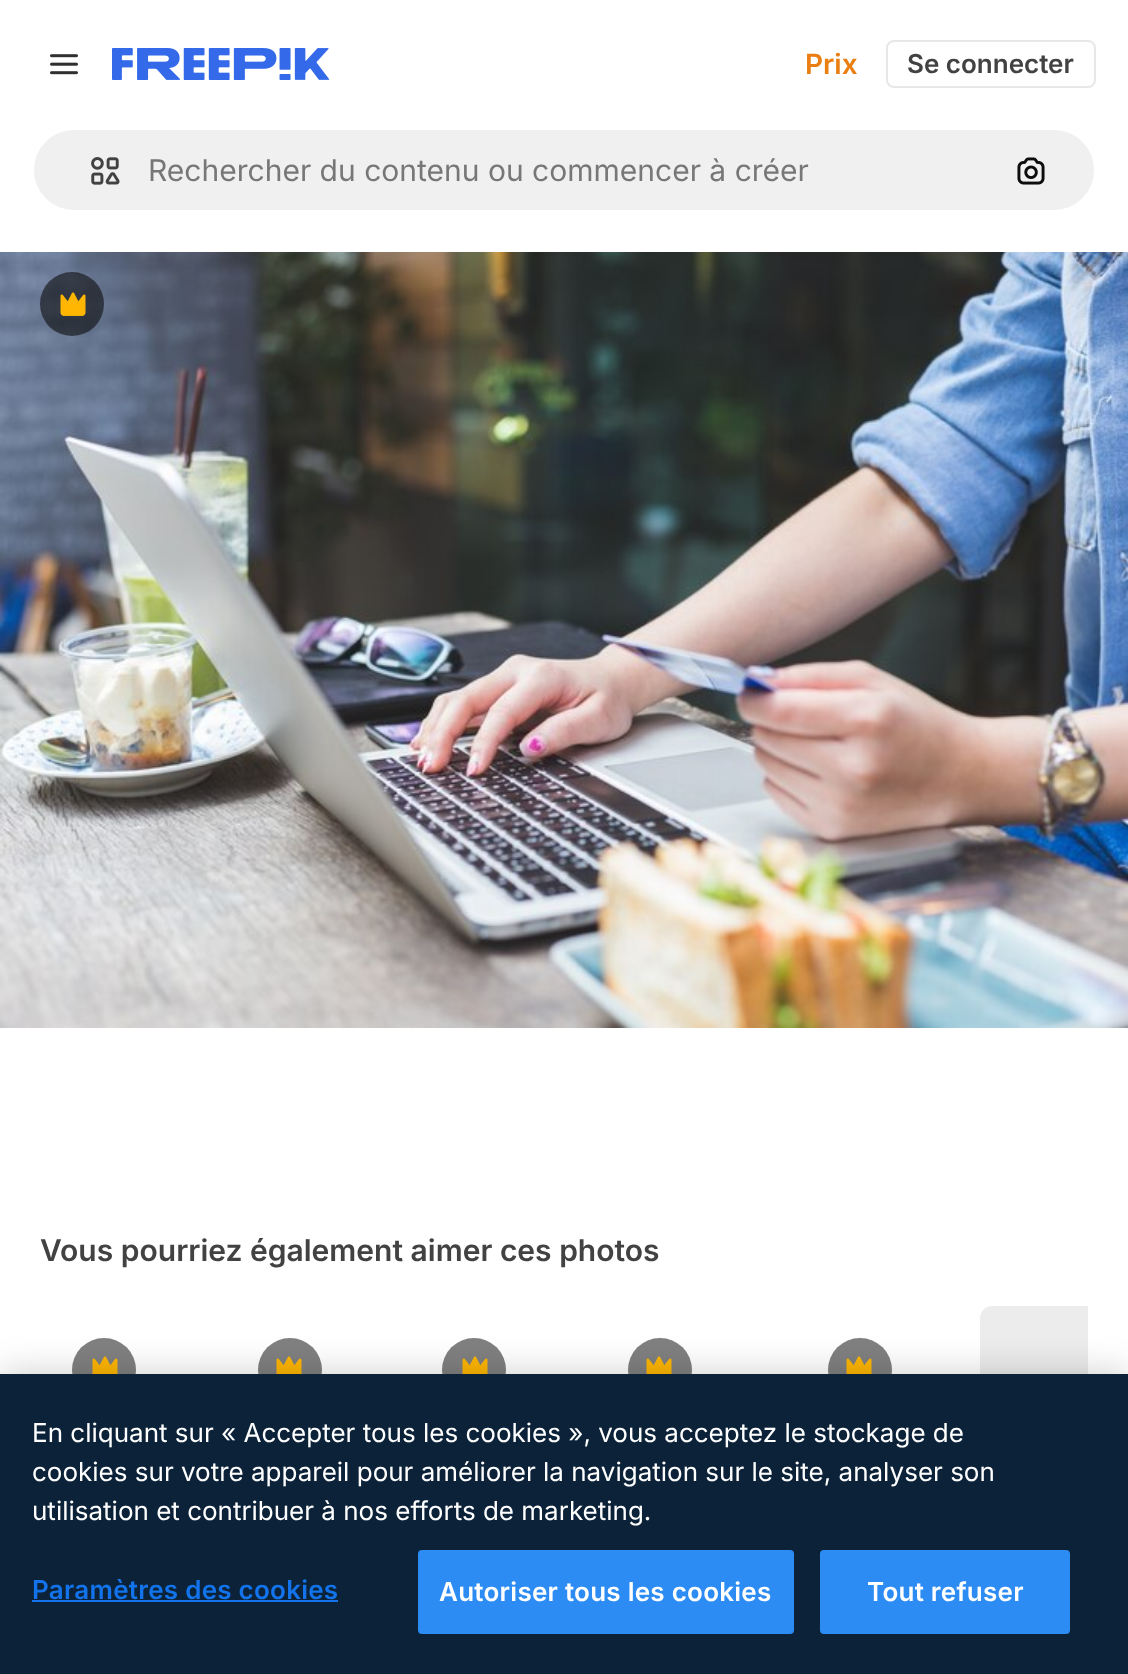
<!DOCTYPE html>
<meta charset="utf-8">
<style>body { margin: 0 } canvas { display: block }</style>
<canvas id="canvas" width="1128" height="1674"></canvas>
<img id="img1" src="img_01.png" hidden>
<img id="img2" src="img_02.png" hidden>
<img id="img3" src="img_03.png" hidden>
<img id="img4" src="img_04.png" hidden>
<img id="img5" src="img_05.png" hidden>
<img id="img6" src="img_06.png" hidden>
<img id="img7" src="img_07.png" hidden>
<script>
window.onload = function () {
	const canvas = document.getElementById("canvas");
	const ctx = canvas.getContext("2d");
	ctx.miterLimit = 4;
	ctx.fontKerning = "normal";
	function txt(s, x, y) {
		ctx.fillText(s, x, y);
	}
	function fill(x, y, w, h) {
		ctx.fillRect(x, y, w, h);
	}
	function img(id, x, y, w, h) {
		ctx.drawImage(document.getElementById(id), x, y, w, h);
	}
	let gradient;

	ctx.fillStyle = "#FFFFFF";
	fill(0, 0, 1128, 1674);
	img("img1", 50, 54, 28, 21);
	img("img2", 112, 48, 218, 32);
	ctx.beginPath();
	ctx.roundRect(887, 41, 208, 46, 7);
	ctx.strokeStyle = "#E7E7E7";
	ctx.lineWidth = 2;
	ctx.stroke();
	ctx.fillStyle = "#F0F0F0";
	ctx.beginPath();
	ctx.roundRect(33, 129, 1062, 82, 41);
	ctx.fill();
	ctx.strokeStyle = "#FFFFFF";
	ctx.stroke();
	img("img3", 91, 157, 29, 28);
	img("img4", 1017, 157, 28, 28);
	img("img5", 0, 252, 1128, 776);
	ctx.fillStyle = "rgba(13, 13, 13, 0.6)";
	ctx.beginPath();
	ctx.arc(72, 304, 32, 0, Math.PI * 2);
	ctx.fill();
	img("img6", 60, 292, 26, 24);
	ctx.fillStyle = "#808080";
	ctx.beginPath();
	ctx.arc(104, 1370, 32, 0, Math.PI * 2);
	ctx.fill();
	img("img7", 92, 1356, 26, 18);
	ctx.beginPath();
	ctx.arc(290, 1370, 32, 0, Math.PI * 2);
	ctx.fill();
	img("img7", 276, 1356, 26, 18);
	ctx.beginPath();
	ctx.arc(474, 1370, 32, 0, Math.PI * 2);
	ctx.fill();
	img("img7", 462, 1356, 26, 18);
	ctx.beginPath();
	ctx.arc(660, 1370, 32, 0, Math.PI * 2);
	ctx.fill();
	img("img7", 646, 1356, 26, 18);
	ctx.beginPath();
	ctx.arc(860, 1370, 32, 0, Math.PI * 2);
	ctx.fill();
	img("img7", 846, 1356, 26, 18);
	gradient = ctx.createLinearGradient(1038, 1147, 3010, 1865);
	gradient.addColorStop(0.08, "#ECECEC");
	gradient.addColorStop(0.18, "#F5F5F5");
	gradient.addColorStop(0.33, "#ECECEC");
	ctx.fillStyle = gradient;
	ctx.beginPath();
	ctx.moveTo(992, 1306);
	ctx.lineTo(1088, 1306);
	ctx.lineTo(1088, 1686);
	ctx.lineTo(992, 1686);
	ctx.bezierCurveTo(985.5, 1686, 980, 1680.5, 980, 1674);
	ctx.lineTo(980, 1318);
	ctx.bezierCurveTo(980, 1311.5, 985.5, 1306, 992, 1306);
	ctx.closePath();
	ctx.fill();
	ctx.fillStyle = "rgba(0, 0, 0, 0.2)";
	ctx.filter = "blur(18px)";
	ctx.beginPath();
	ctx.rect(0, 1374, 1128, 300);
	ctx.fill();
	ctx.filter = "none";
	ctx.fillStyle = "#0B2239";
	fill(0, 1374, 1128, 300);
	ctx.fillStyle = "#1273EB";
	fill(32, 1600, 306, 2);
	ctx.fillStyle = "#2C8CF4";
	ctx.beginPath();
	ctx.roundRect(419, 1551, 374, 82, 3);
	ctx.fill();
	ctx.strokeStyle = "#2C8CF4";
	ctx.stroke();
	ctx.beginPath();
	ctx.roundRect(821, 1551, 248, 82, 3);
	ctx.fill();
	ctx.stroke();
	ctx.font = "600 28px Inter";
	ctx.fillStyle = "#EA7E11";
	txt("Prix", 805, 74);
	ctx.font = "600 26px Inter";
	ctx.fillStyle = "#424242";
	txt("Se connecter", 907, 73);
	ctx.font = "30px Inter";
	ctx.fillStyle = "#777777";
	txt("Rechercher du contenu ou commencer à créer", 148, 181);
	ctx.font = "600 30px Inter";
	ctx.fillStyle = "#424242";
	txt("Vous pourriez également aimer ces photos", 40, 1261);
	ctx.font = "26px Inter";
	ctx.fillStyle = "#FFFFFF";
	txt("En cliquant sur « Accepter tous les cookies », vous acceptez le stockage de", 32, 1442);
	txt("cookies sur votre appareil pour améliorer la navigation sur le site, analyser son", 32, 1481);
	txt("utilisation et contribuer à nos efforts de marketing.", 32, 1520);
	ctx.letterSpacing = "0.25px";
	ctx.font = "600 26px Inter";
	ctx.fillStyle = "#1273EB";
	txt("Paramètres des cookies", 32, 1599);
	ctx.fillStyle = "#FFFFFF";
	txt("Autoriser tous les cookies", 439, 1601);
	txt("Tout refuser", 867, 1601);
};
</script>
